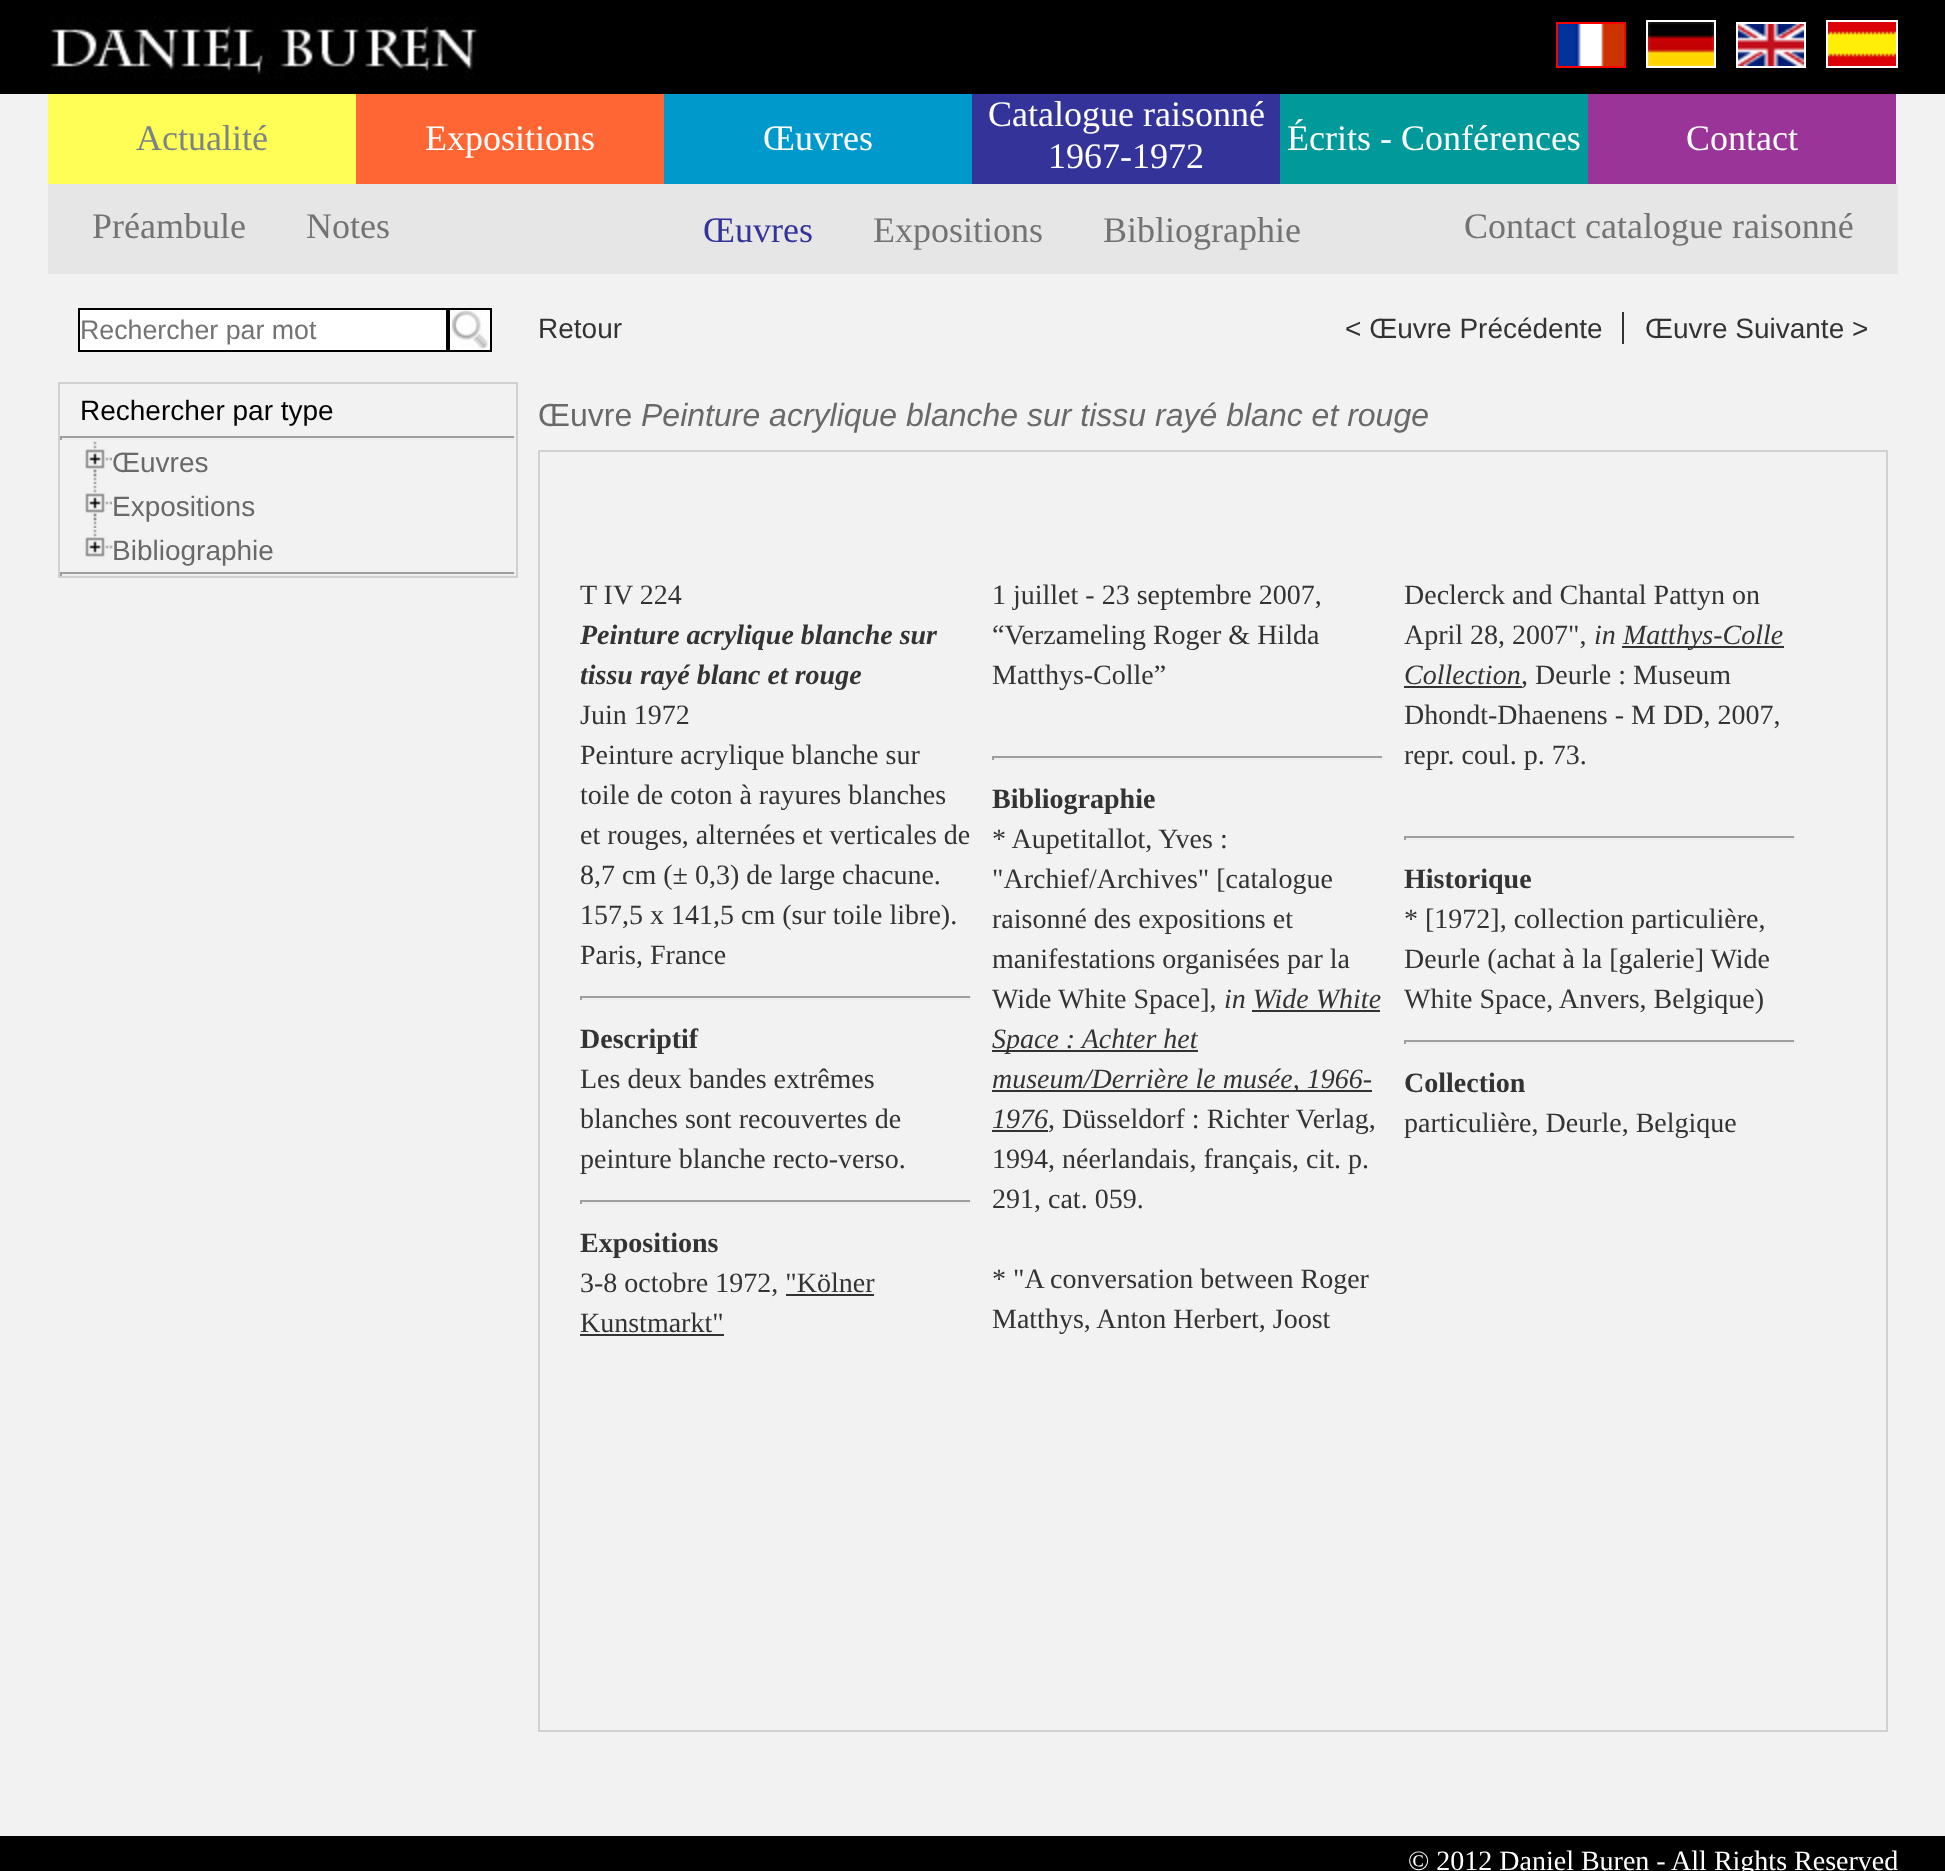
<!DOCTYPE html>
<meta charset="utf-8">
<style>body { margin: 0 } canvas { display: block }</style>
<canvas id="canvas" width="1945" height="1871"></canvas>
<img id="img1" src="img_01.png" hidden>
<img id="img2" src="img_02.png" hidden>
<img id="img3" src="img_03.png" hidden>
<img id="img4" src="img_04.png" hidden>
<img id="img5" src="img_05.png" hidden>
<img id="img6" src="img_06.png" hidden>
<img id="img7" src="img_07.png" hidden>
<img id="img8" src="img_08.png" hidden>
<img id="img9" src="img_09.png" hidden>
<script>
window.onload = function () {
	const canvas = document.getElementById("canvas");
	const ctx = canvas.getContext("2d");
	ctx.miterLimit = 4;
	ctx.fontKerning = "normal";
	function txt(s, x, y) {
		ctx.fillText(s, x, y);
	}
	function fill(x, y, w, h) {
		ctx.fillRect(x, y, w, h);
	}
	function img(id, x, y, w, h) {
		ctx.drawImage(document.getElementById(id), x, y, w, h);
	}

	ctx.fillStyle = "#F2F2F2";
	fill(0, 0, 1945, 1871);
	ctx.fillStyle = "#000000";
	fill(0, 0, 1945, 94);
	img("img1", 50, 16, 429, 64);
	ctx.strokeStyle = "#FF0000";
	ctx.lineWidth = 2;
	ctx.strokeRect(1557, 23, 68, 44);
	ctx.strokeStyle = "#FFFFFF";
	ctx.strokeRect(1647, 21, 68, 46);
	ctx.strokeRect(1827, 21, 70, 46);
	img("img2", 1558, 24, 66, 42);
	img("img3", 1648, 22, 66, 44);
	ctx.strokeRect(1737, 23, 68, 44);
	img("img4", 1828, 22, 68, 44);
	img("img5", 1738, 24, 66, 42);
	ctx.fillStyle = "#FEFE56";
	fill(48, 94, 308, 90);
	ctx.fillStyle = "#FF6633";
	fill(356, 94, 308, 90);
	ctx.fillStyle = "#0099CC";
	fill(664, 94, 308, 90);
	ctx.fillStyle = "#333399";
	fill(972, 94, 308, 90);
	ctx.fillStyle = "#019999";
	fill(1280, 94, 308, 90);
	ctx.fillStyle = "#9A3499";
	fill(1588, 94, 308, 90);
	ctx.fillStyle = "#E6E6E6";
	fill(48, 184, 1850, 90);
	ctx.fillStyle = "#FFFFFF";
	ctx.beginPath();
	ctx.rect(79, 309, 368, 42);
	ctx.fill();
	ctx.strokeStyle = "#000000";
	ctx.stroke();
	ctx.strokeRect(449, 309, 42, 42);
	img("img6", 450, 310, 40, 40);
	ctx.strokeStyle = "#D1D1D1";
	ctx.strokeRect(59, 383, 458, 194);
	ctx.fillStyle = "#9F9F9F";
	fill(60, 436, 456, 2);
	ctx.fillStyle = "#EEEEEE";
	fill(514, 436, 2, 4);
	fill(60, 438, 456, 2);
	ctx.fillStyle = "#9F9F9F";
	fill(60, 436, 2, 4);
	img("img7", 93, 441, 4, 43);
	img("img8", 85, 449, 27, 28);
	img("img7", 93, 485, 4, 43);
	img("img8", 85, 493, 27, 28);
	img("img9", 85, 529, 28, 28);
	fill(60, 572, 456, 2);
	ctx.fillStyle = "#EEEEEE";
	fill(514, 572, 2, 4);
	fill(60, 574, 456, 2);
	ctx.fillStyle = "#9F9F9F";
	fill(60, 572, 2, 4);
	ctx.fillStyle = "#333333";
	fill(1622, 312, 2, 32);
	ctx.strokeRect(539, 451, 1348, 1280);
	ctx.fillStyle = "#9F9F9F";
	fill(580, 996, 392, 2);
	ctx.fillStyle = "#EEEEEE";
	fill(970, 996, 2, 4);
	fill(580, 998, 392, 2);
	ctx.fillStyle = "#9F9F9F";
	fill(580, 996, 2, 4);
	fill(580, 1200, 392, 2);
	ctx.fillStyle = "#EEEEEE";
	fill(970, 1200, 2, 4);
	fill(580, 1202, 392, 2);
	ctx.fillStyle = "#9F9F9F";
	fill(580, 1200, 2, 4);
	ctx.fillStyle = "#333333";
	fill(786, 1294, 88, 2);
	fill(580, 1334, 144, 2);
	ctx.fillStyle = "#9F9F9F";
	fill(992, 756, 392, 2);
	ctx.fillStyle = "#EEEEEE";
	fill(1382, 756, 2, 4);
	fill(992, 758, 392, 2);
	ctx.fillStyle = "#9F9F9F";
	fill(992, 756, 2, 4);
	ctx.fillStyle = "#333333";
	fill(1252, 1010, 128, 2);
	fill(992, 1050, 206, 2);
	fill(992, 1090, 380, 2);
	fill(992, 1130, 56, 2);
	fill(1622, 646, 162, 2);
	fill(1404, 686, 118, 2);
	ctx.fillStyle = "#9F9F9F";
	fill(1404, 836, 392, 2);
	ctx.fillStyle = "#EEEEEE";
	fill(1794, 836, 2, 4);
	fill(1404, 838, 392, 2);
	ctx.fillStyle = "#9F9F9F";
	fill(1404, 836, 2, 4);
	fill(1404, 1040, 392, 2);
	ctx.fillStyle = "#EEEEEE";
	fill(1794, 1040, 2, 4);
	fill(1404, 1042, 392, 2);
	ctx.fillStyle = "#9F9F9F";
	fill(1404, 1040, 2, 4);
	ctx.fillStyle = "#000000";
	fill(0, 1836, 1945, 35);
	ctx.font = "36px Liberation Serif";
	ctx.fillStyle = "#7C8387";
	txt("Actualité", 136, 150);
	ctx.fillStyle = "#FFFFFF";
	txt("Expositions", 425, 150);
	txt("Œuvres", 763, 150);
	txt("Catalogue raisonné", 988, 126);
	txt("1967-1972", 1048, 168);
	txt("Écrits - Conférences", 1287, 150);
	txt("Contact", 1686, 150);
	ctx.fillStyle = "#737373";
	txt("Préambule", 92, 238);
	txt("Notes", 306, 238);
	ctx.fillStyle = "#333399";
	txt("Œuvres", 703, 242);
	ctx.fillStyle = "#737373";
	txt("Expositions", 873, 242);
	txt("Bibliographie", 1103, 242);
	txt("Contact catalogue raisonné", 1464, 238);
	ctx.font = "26.75px Liberation Sans";
	txt("Rechercher par mot", 80, 339);
	ctx.font = "28px Liberation Sans";
	ctx.fillStyle = "#000000";
	txt("Rechercher par type", 80, 420);
	ctx.fillStyle = "#696969";
	txt("Œuvres", 112, 472);
	txt("Expositions", 112, 516);
	txt("Bibliographie", 112, 560);
	ctx.fillStyle = "#333333";
	txt("Retour", 538, 338);
	txt("< Œuvre Précédente", 1345, 338);
	txt("Œuvre Suivante >", 1645, 338);
	ctx.font = "32px Liberation Sans";
	ctx.fillStyle = "#696969";
	txt("Œuvre", 538, 426);
	ctx.font = "italic 32px Liberation Sans";
	txt("Peinture acrylique blanche sur tissu rayé blanc et rouge", 641, 426);
	ctx.font = "28px Liberation Serif";
	ctx.fillStyle = "#333333";
	txt("T IV 224", 580, 604);
	ctx.font = "italic bold 28px Liberation Serif";
	txt("Peinture acrylique blanche sur", 580, 644);
	txt("tissu rayé blanc et rouge", 580, 684);
	ctx.font = "28px Liberation Serif";
	txt("Juin 1972", 580, 724);
	txt("Peinture acrylique blanche sur", 580, 764);
	txt("toile de coton à rayures blanches", 580, 804);
	txt("et rouges, alternées et verticales de", 580, 844);
	txt("8,7 cm (± 0,3) de large chacune.", 580, 884);
	txt("157,5 x 141,5 cm (sur toile libre).", 580, 924);
	txt("Paris, France", 580, 964);
	ctx.font = "bold 28px Liberation Serif";
	txt("Descriptif", 580, 1048);
	ctx.font = "28px Liberation Serif";
	txt("Les deux bandes extrêmes", 580, 1088);
	txt("blanches sont recouvertes de", 580, 1128);
	txt("peinture blanche recto-verso.", 580, 1168);
	ctx.font = "bold 28px Liberation Serif";
	txt("Expositions", 580, 1252);
	ctx.font = "28px Liberation Serif";
	txt("3-8 octobre 1972, \"Kölner", 580, 1292);
	txt("Kunstmarkt\"", 580, 1332);
	txt("1 juillet - 23 septembre 2007,", 992, 604);
	txt("“Verzameling Roger & Hilda", 992, 644);
	txt("Matthys-Colle”", 992, 684);
	ctx.font = "bold 28px Liberation Serif";
	txt("Bibliographie", 992, 808);
	ctx.font = "28px Liberation Serif";
	txt("* Aupetitallot, Yves :", 992, 848);
	txt("\"Archief/Archives\" [catalogue", 992, 888);
	txt("raisonné des expositions et", 992, 928);
	txt("manifestations organisées par la", 992, 968);
	txt("Wide White Space],", 992, 1008);
	ctx.font = "italic 28px Liberation Serif";
	txt("in Wide White", 1224, 1008);
	txt("Space : Achter het", 992, 1048);
	txt("museum/Derrière le musée, 1966-", 992, 1088);
	txt("1976", 992, 1128);
	ctx.font = "28px Liberation Serif";
	txt(", Düsseldorf : Richter Verlag,", 1048, 1128);
	txt("1994, néerlandais, français, cit. p.", 992, 1168);
	txt("291, cat. 059.", 992, 1208);
	txt("* \"A conversation between Roger", 992, 1288);
	txt("Matthys, Anton Herbert, Joost", 992, 1328);
	txt("Declerck and Chantal Pattyn on", 1404, 604);
	txt("April 28, 2007\",", 1404, 644);
	ctx.font = "italic 28px Liberation Serif";
	txt("in", 1594, 644);
	txt("Matthys-Colle", 1623, 644);
	txt("Collection", 1404, 684);
	ctx.font = "28px Liberation Serif";
	txt(", Deurle : Museum", 1521, 684);
	txt("Dhondt-Dhaenens - M DD, 2007,", 1404, 724);
	txt("repr. coul. p. 73.", 1404, 764);
	ctx.font = "bold 28px Liberation Serif";
	txt("Historique", 1404, 888);
	ctx.font = "28px Liberation Serif";
	txt("* [1972], collection particulière,", 1404, 928);
	txt("Deurle (achat à la [galerie] Wide", 1404, 968);
	txt("White Space, Anvers, Belgique)", 1404, 1008);
	ctx.font = "bold 28px Liberation Serif";
	txt("Collection", 1404, 1092);
	ctx.font = "28px Liberation Serif";
	txt("particulière, Deurle, Belgique", 1404, 1132);
	ctx.fillStyle = "#FFFFFF";
	txt("© 2012 Daniel Buren - All Rights Reserved", 1408, 1870);
};
</script>
